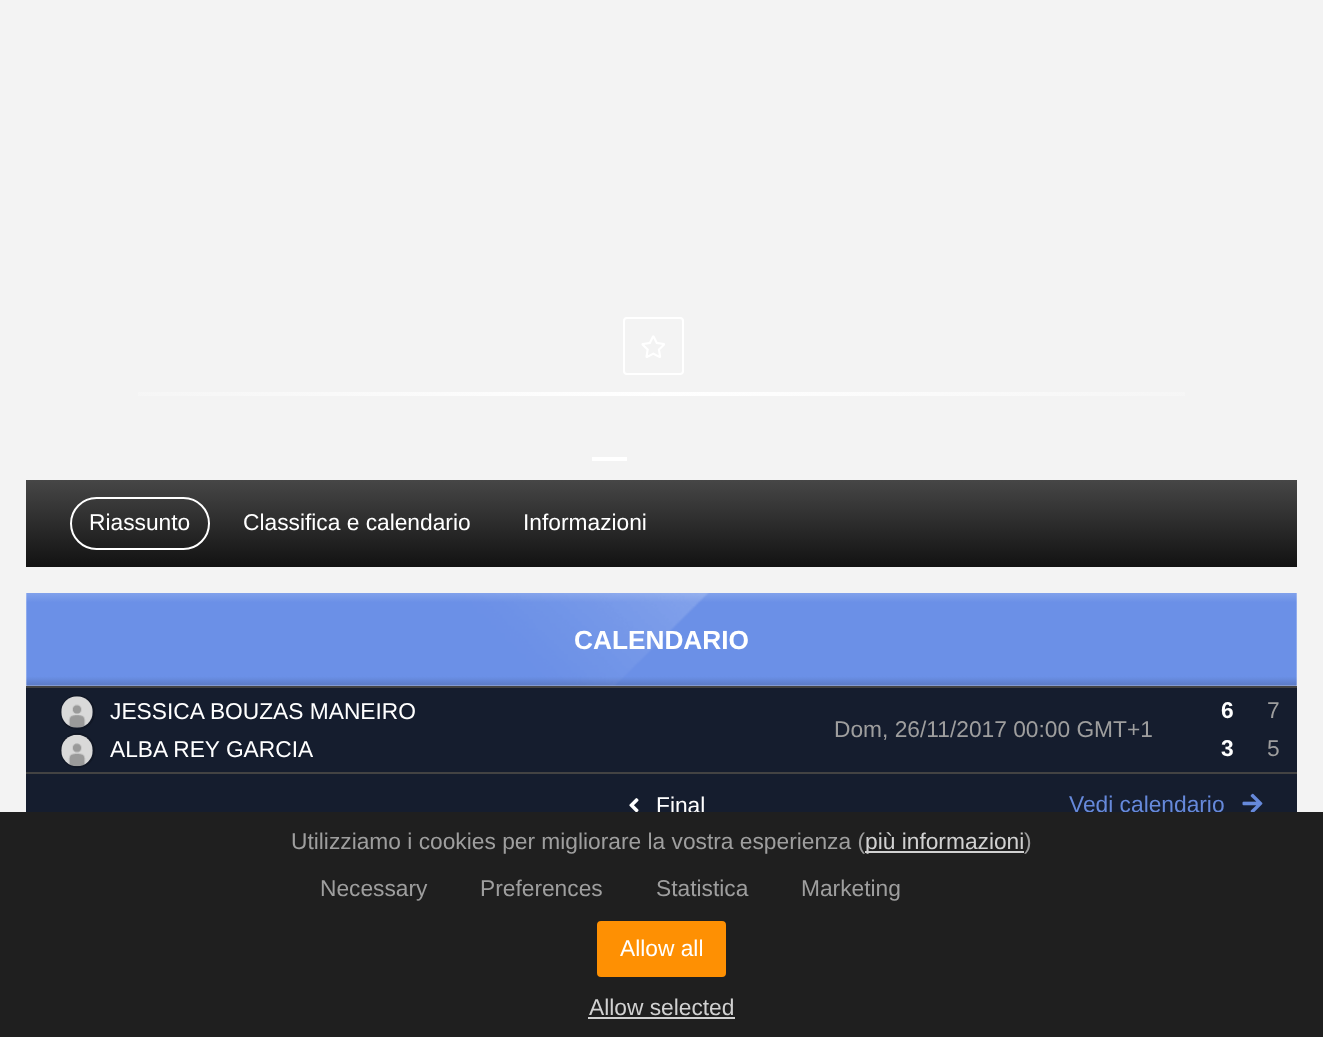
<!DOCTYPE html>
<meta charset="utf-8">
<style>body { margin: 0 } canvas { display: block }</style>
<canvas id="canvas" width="1323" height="1037"></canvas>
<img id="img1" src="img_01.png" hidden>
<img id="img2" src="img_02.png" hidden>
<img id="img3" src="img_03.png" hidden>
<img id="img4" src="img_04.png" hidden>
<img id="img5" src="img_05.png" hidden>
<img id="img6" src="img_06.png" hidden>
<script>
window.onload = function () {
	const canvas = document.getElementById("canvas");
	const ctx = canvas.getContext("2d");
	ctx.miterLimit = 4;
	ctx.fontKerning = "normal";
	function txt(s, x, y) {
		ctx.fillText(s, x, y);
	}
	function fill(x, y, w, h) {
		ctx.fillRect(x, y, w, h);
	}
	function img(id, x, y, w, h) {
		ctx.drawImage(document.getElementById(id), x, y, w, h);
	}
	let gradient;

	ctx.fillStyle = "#F3F3F3";
	fill(0, 0, 1323, 1037);
	ctx.beginPath();
	ctx.roundRect(624, 318, 59, 56, 3);
	ctx.strokeStyle = "#FFFFFF";
	ctx.lineWidth = 2;
	ctx.stroke();
	img("img1", 641, 335, 24, 23);
	gradient = ctx.createLinearGradient(0, 394, 1323, 394);
	gradient.addColorStop(0, "#F3F3F3");
	gradient.addColorStop(0.5, "#FFFFFF");
	gradient.addColorStop(1, "#F3F3F3");
	ctx.fillStyle = gradient;
	fill(138, 392, 1047, 4);
	ctx.fillStyle = "#FFFFFF";
	fill(592, 457, 35, 4);
	gradient = ctx.createLinearGradient(662, 479, 662, 567);
	gradient.addColorStop(0, "#474747");
	gradient.addColorStop(1, "#121212");
	ctx.fillStyle = gradient;
	fill(26, 480, 1271, 87);
	ctx.beginPath();
	ctx.roundRect(71, 498, 138, 51, 25.5);
	ctx.stroke();
	ctx.fillStyle = "#151D2E";
	fill(26, 688, 1271, 124);
	ctx.fillStyle = "#FFFFFF";
	fill(26, 593, 1271, 93);
	img("img2", 26, 593, 1271, 93);
	ctx.fillStyle = "#434343";
	fill(26, 772, 1271, 2);
	ctx.beginPath();
	ctx.arc(77.5, 712.5, 16.5, 0, Math.PI * 2);
	ctx.strokeStyle = "#111725";
	ctx.stroke();
	img("img3", 61, 696, 32, 32);
	ctx.beginPath();
	ctx.arc(77.5, 750.5, 16.5, 0, Math.PI * 2);
	ctx.stroke();
	img("img4", 61, 734, 32, 33);
	fill(26, 686, 1271, 2);
	img("img5", 629, 798, 10, 14);
	img("img6", 1242, 793, 21, 19);
	ctx.font = "22.75px Liberation Sans";
	ctx.fillStyle = "#FFFFFF";
	txt("Riassunto", 89, 530);
	txt("Classifica e calendario", 243, 530);
	txt("Informazioni", 523, 530);
	ctx.font = "bold 26.25px Liberation Sans";
	txt("CALENDARIO", 574, 649);
	ctx.font = "22.75px Liberation Sans";
	txt("JESSICA BOUZAS MANEIRO", 110, 719);
	txt("ALBA REY GARCIA", 110, 757);
	ctx.fillStyle = "#9E9E9E";
	txt("Dom, 26/11/2017 00:00 GMT+1", 834, 737);
	ctx.font = "bold 22.75px Liberation Sans";
	ctx.fillStyle = "#FFFFFF";
	txt("6", 1221, 718);
	txt("3", 1221, 756);
	ctx.font = "22.75px Liberation Sans";
	ctx.fillStyle = "#9E9E9E";
	txt("7", 1267, 718);
	txt("5", 1267, 756);
	ctx.fillStyle = "#FFFFFF";
	txt("Final", 656, 813);
	ctx.fillStyle = "#6689DB";
	txt("Vedi calendario", 1069, 812);
	ctx.fillStyle = "#1F1F1F";
	fill(0, 812, 1323, 225);
	ctx.fillStyle = "#9E9E9E";
	txt("Utilizziamo i cookies per migliorare la vostra esperienza (", 291, 849);
	ctx.fillStyle = "#D1D1D1";
	fill(865, 851, 159, 2);
	txt("più informazioni", 865, 849);
	ctx.fillStyle = "#9E9E9E";
	txt(")", 1024, 849);
	txt("Necessary", 320, 896);
	txt("Preferences", 480, 896);
	txt("Statistica", 656, 896);
	txt("Marketing", 801, 896);
	ctx.fillStyle = "#FE9003";
	ctx.beginPath();
	ctx.roundRect(598, 922, 127, 54, 3);
	ctx.fill();
	ctx.strokeStyle = "#FE9003";
	ctx.stroke();
	ctx.fillStyle = "#FFFFFF";
	txt("Allow all", 620, 956);
	ctx.fillStyle = "#D1D1D1";
	txt("Allow selected", 589, 1015);
	fill(588, 1017, 147, 2);
};
</script>
